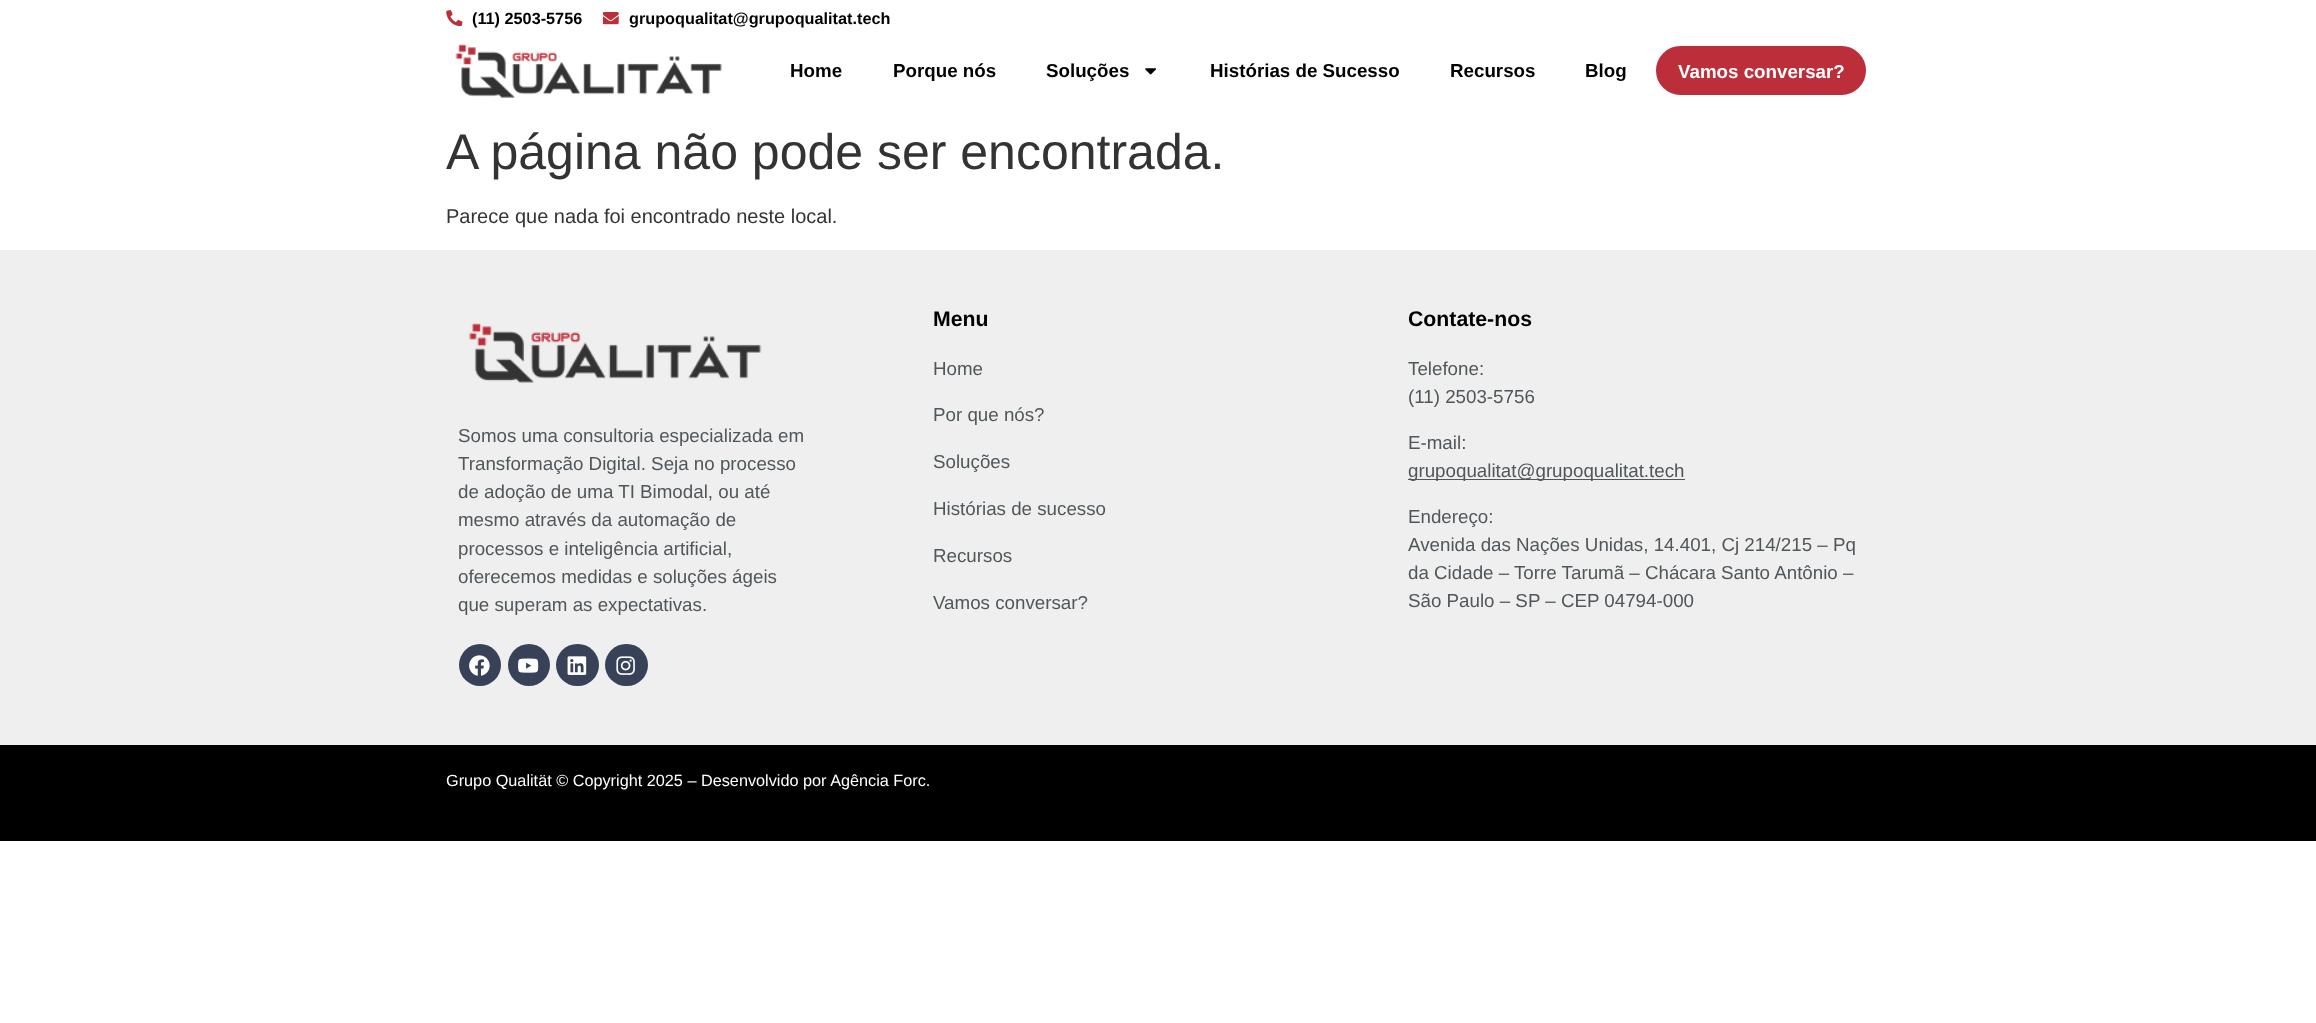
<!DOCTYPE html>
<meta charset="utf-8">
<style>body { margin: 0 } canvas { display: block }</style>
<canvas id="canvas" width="2316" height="1023"></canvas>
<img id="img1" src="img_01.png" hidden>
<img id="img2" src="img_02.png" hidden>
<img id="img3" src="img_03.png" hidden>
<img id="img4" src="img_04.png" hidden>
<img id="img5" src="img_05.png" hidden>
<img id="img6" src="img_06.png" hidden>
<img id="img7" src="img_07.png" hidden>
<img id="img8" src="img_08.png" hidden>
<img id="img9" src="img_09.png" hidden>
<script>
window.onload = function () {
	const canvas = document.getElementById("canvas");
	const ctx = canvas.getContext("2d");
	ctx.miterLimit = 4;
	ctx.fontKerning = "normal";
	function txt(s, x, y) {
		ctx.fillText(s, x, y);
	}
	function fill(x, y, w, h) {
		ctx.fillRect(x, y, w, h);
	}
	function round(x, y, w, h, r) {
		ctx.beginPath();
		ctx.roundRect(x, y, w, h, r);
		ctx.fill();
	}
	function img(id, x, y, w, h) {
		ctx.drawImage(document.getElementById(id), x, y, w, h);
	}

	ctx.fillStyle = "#FFFFFF";
	fill(0, 0, 2316, 1023);
	img("img1", 446, 10, 17, 16);
	img("img2", 603, 12, 16, 13);
	img("img3", 455, 44, 268, 54);
	img("img4", 1145, 68, 11, 7);
	ctx.fillStyle = "#BC2E39";
	ctx.beginPath();
	ctx.roundRect(1657.5, 47.5, 207, 46, 23);
	ctx.fill();
	ctx.strokeStyle = "#BC2E39";
	ctx.lineWidth = 3;
	ctx.stroke();
	ctx.fillStyle = "#EFEFEF";
	fill(0, 250, 2316, 495);
	img("img5", 468, 323, 294, 60);
	ctx.fillStyle = "#374258";
	ctx.beginPath();
	ctx.arc(480, 665, 21, 0, Math.PI * 2);
	ctx.fill();
	img("img6", 469, 655, 21, 21);
	ctx.beginPath();
	ctx.arc(529, 665, 21, 0, Math.PI * 2);
	ctx.fill();
	img("img7", 518, 658, 21, 15);
	round(556, 644, 43, 42, 21);
	img("img8", 567, 656, 20, 19);
	round(605, 644, 43, 42, 21);
	img("img9", 616, 656, 19, 19);
	ctx.fillStyle = "#50575B";
	fill(1408, 479, 277, 1);
	ctx.fillStyle = "#000000";
	fill(0, 745, 2316, 96);
	ctx.font = "bold 16.25px Liberation Sans";
	txt("(11) 2503-5756", 472, 24);
	txt("grupoqualitat@grupoqualitat.tech", 629, 24);
	ctx.font = "bold 18.75px Liberation Sans";
	txt("Home", 790, 77);
	txt("Porque nós", 893, 77);
	txt("Soluções", 1046, 77);
	txt("Histórias de Sucesso", 1210, 77);
	txt("Recursos", 1450, 77);
	txt("Blog", 1585, 77);
	ctx.fillStyle = "#FFFFFF";
	txt("Vamos conversar?", 1678, 78);
	ctx.font = "50px Liberation Sans";
	ctx.fillStyle = "#333333";
	txt("A página não pode ser encontrada.", 446, 169);
	ctx.font = "20px Liberation Sans";
	txt("Parece que nada foi encontrado neste local.", 446, 223);
	ctx.font = "18.75px Liberation Sans";
	ctx.fillStyle = "#50575B";
	txt("Somos uma consultoria especializada em", 458, 442);
	txt("Transformação Digital. Seja no processo", 458, 470);
	txt("de adoção de uma TI Bimodal, ou até", 458, 498);
	txt("mesmo através da automação de", 458, 526);
	txt("processos e inteligência artificial,", 458, 555);
	txt("oferecemos medidas e soluções ágeis", 458, 583);
	txt("que superam as expectativas.", 458, 611);
	ctx.font = "bold 21.25px Liberation Sans";
	ctx.fillStyle = "#000000";
	txt("Menu", 933, 326);
	ctx.font = "18.75px Liberation Sans";
	ctx.fillStyle = "#50575B";
	txt("Home", 933, 375);
	txt("Por que nós?", 933, 421);
	txt("Soluções", 933, 468);
	txt("Histórias de sucesso", 933, 515);
	txt("Recursos", 933, 562);
	txt("Vamos conversar?", 933, 609);
	ctx.font = "bold 21.25px Liberation Sans";
	ctx.fillStyle = "#000000";
	txt("Contate-nos", 1408, 326);
	ctx.font = "18.75px Liberation Sans";
	ctx.fillStyle = "#50575B";
	txt("Telefone:", 1408, 375);
	txt("(11) 2503-5756", 1408, 403);
	txt("E-mail:", 1408, 449);
	txt("grupoqualitat@grupoqualitat.tech", 1408, 477);
	txt("Endereço:", 1408, 523);
	txt("Avenida das Nações Unidas, 14.401, Cj 214/215 – Pq", 1408, 551);
	txt("da Cidade – Torre Tarumã – Chácara Santo Antônio –", 1408, 579);
	txt("São Paulo – SP – CEP 04794-000", 1408, 607);
	ctx.font = "16.25px Liberation Sans";
	ctx.fillStyle = "#FFFFFF";
	txt("Grupo Qualität © Copyright 2025 – Desenvolvido por Agência Forc.", 446, 786);
};
</script>
